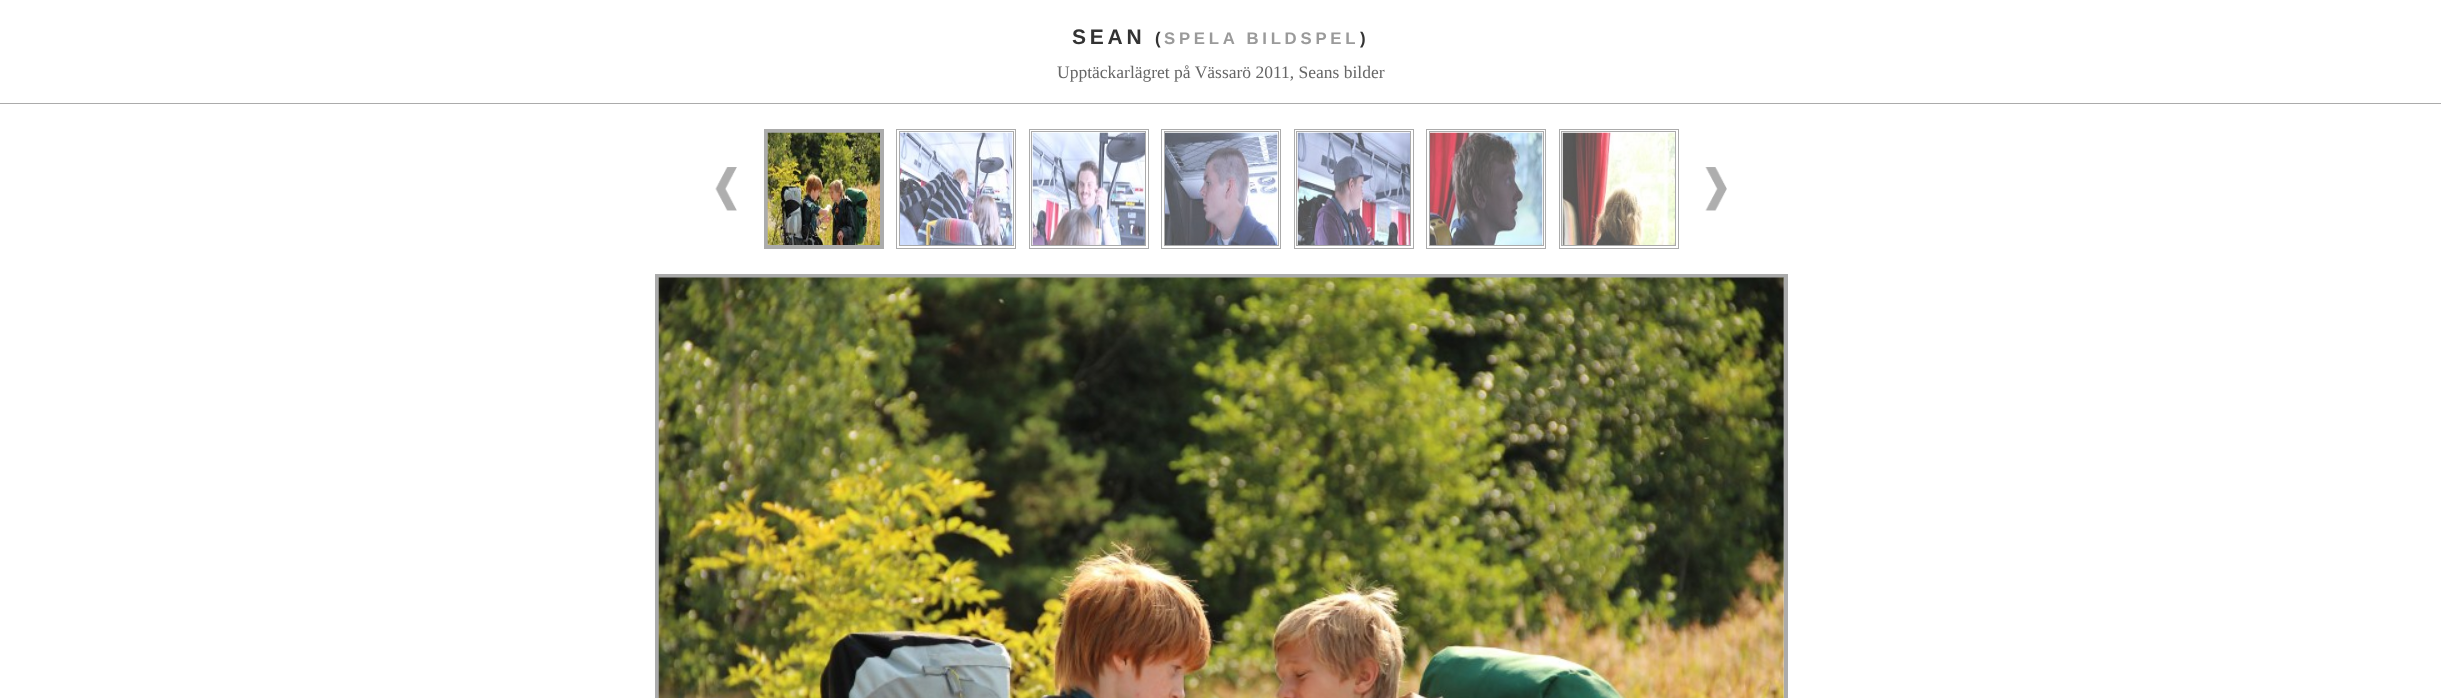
<!DOCTYPE html>
<meta charset="utf-8">
<style>body { margin: 0 } canvas { display: block }</style>
<canvas id="canvas" width="2441" height="698"></canvas>
<img id="img1" src="img_01.png" hidden>
<img id="img2" src="img_02.png" hidden>
<img id="img3" src="img_03.png" hidden>
<img id="img4" src="img_04.png" hidden>
<img id="img5" src="img_05.png" hidden>
<img id="img6" src="img_06.png" hidden>
<img id="img7" src="img_07.png" hidden>
<img id="img8" src="img_08.png" hidden>
<img id="img9" src="img_09.png" hidden>
<img id="img10" src="img_10.png" hidden>
<script>
window.onload = function () {
	const canvas = document.getElementById("canvas");
	const ctx = canvas.getContext("2d");
	ctx.miterLimit = 4;
	ctx.fontKerning = "normal";
	function txt(s, x, y) {
		ctx.fillText(s, x, y);
	}
	function fill(x, y, w, h) {
		ctx.fillRect(x, y, w, h);
	}
	function img(id, x, y, w, h) {
		ctx.drawImage(document.getElementById(id), x, y, w, h);
	}

	ctx.fillStyle = "#FFFFFF";
	fill(0, 0, 2441, 698);
	ctx.fillStyle = "#ABABAB";
	fill(0, 103, 2441, 1);
	img("img1", 715, 167, 22, 44);
	ctx.strokeStyle = "#ABABAB";
	ctx.lineWidth = 4;
	ctx.strokeRect(766, 131, 116, 116);
	img("img2", 767, 132, 113, 113);
	ctx.lineWidth = 1;
	ctx.strokeRect(896.5, 129.5, 119, 119);
	ctx.strokeRect(899.5, 131.5, 114, 114);
	img("img3", 900, 132, 113, 113);
	ctx.strokeRect(1029.5, 129.5, 119, 119);
	ctx.strokeRect(1031.5, 131.5, 114, 114);
	img("img4", 1032, 132, 113, 113);
	ctx.strokeRect(1161.5, 129.5, 119, 119);
	ctx.strokeRect(1164.5, 131.5, 114, 114);
	img("img5", 1165, 132, 113, 113);
	ctx.strokeRect(1294.5, 129.5, 119, 119);
	ctx.strokeRect(1296.5, 131.5, 114, 114);
	img("img6", 1297, 132, 113, 113);
	ctx.strokeRect(1426.5, 129.5, 119, 119);
	ctx.strokeRect(1429.5, 131.5, 114, 114);
	img("img7", 1430, 132, 113, 113);
	ctx.strokeRect(1559.5, 129.5, 119, 119);
	ctx.strokeRect(1561.5, 131.5, 114, 114);
	img("img8", 1562, 132, 113, 113);
	img("img9", 1705, 167, 22, 44);
	ctx.lineWidth = 4;
	ctx.strokeRect(657, 276, 1129, 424);
	img("img10", 658, 277, 1126, 421);
	ctx.letterSpacing = "3.75px";
	ctx.font = "bold 21px Liberation Sans";
	ctx.fillStyle = "#333333";
	txt("SEAN", 1072, 44);
	ctx.font = "bold 16.75px Liberation Sans";
	txt("(", 1155, 44);
	ctx.fillStyle = "#9A9A9A";
	txt("SPELA BILDSPEL", 1164, 44);
	ctx.fillStyle = "#333333";
	txt(")", 1360, 44);
	ctx.letterSpacing = "0px";
	ctx.font = "17.5px Liberation Serif";
	ctx.fillStyle = "#666666";
	txt("Upptäckarlägret på Vässarö 2011, Seans bilder", 1057, 78);
};
</script>
